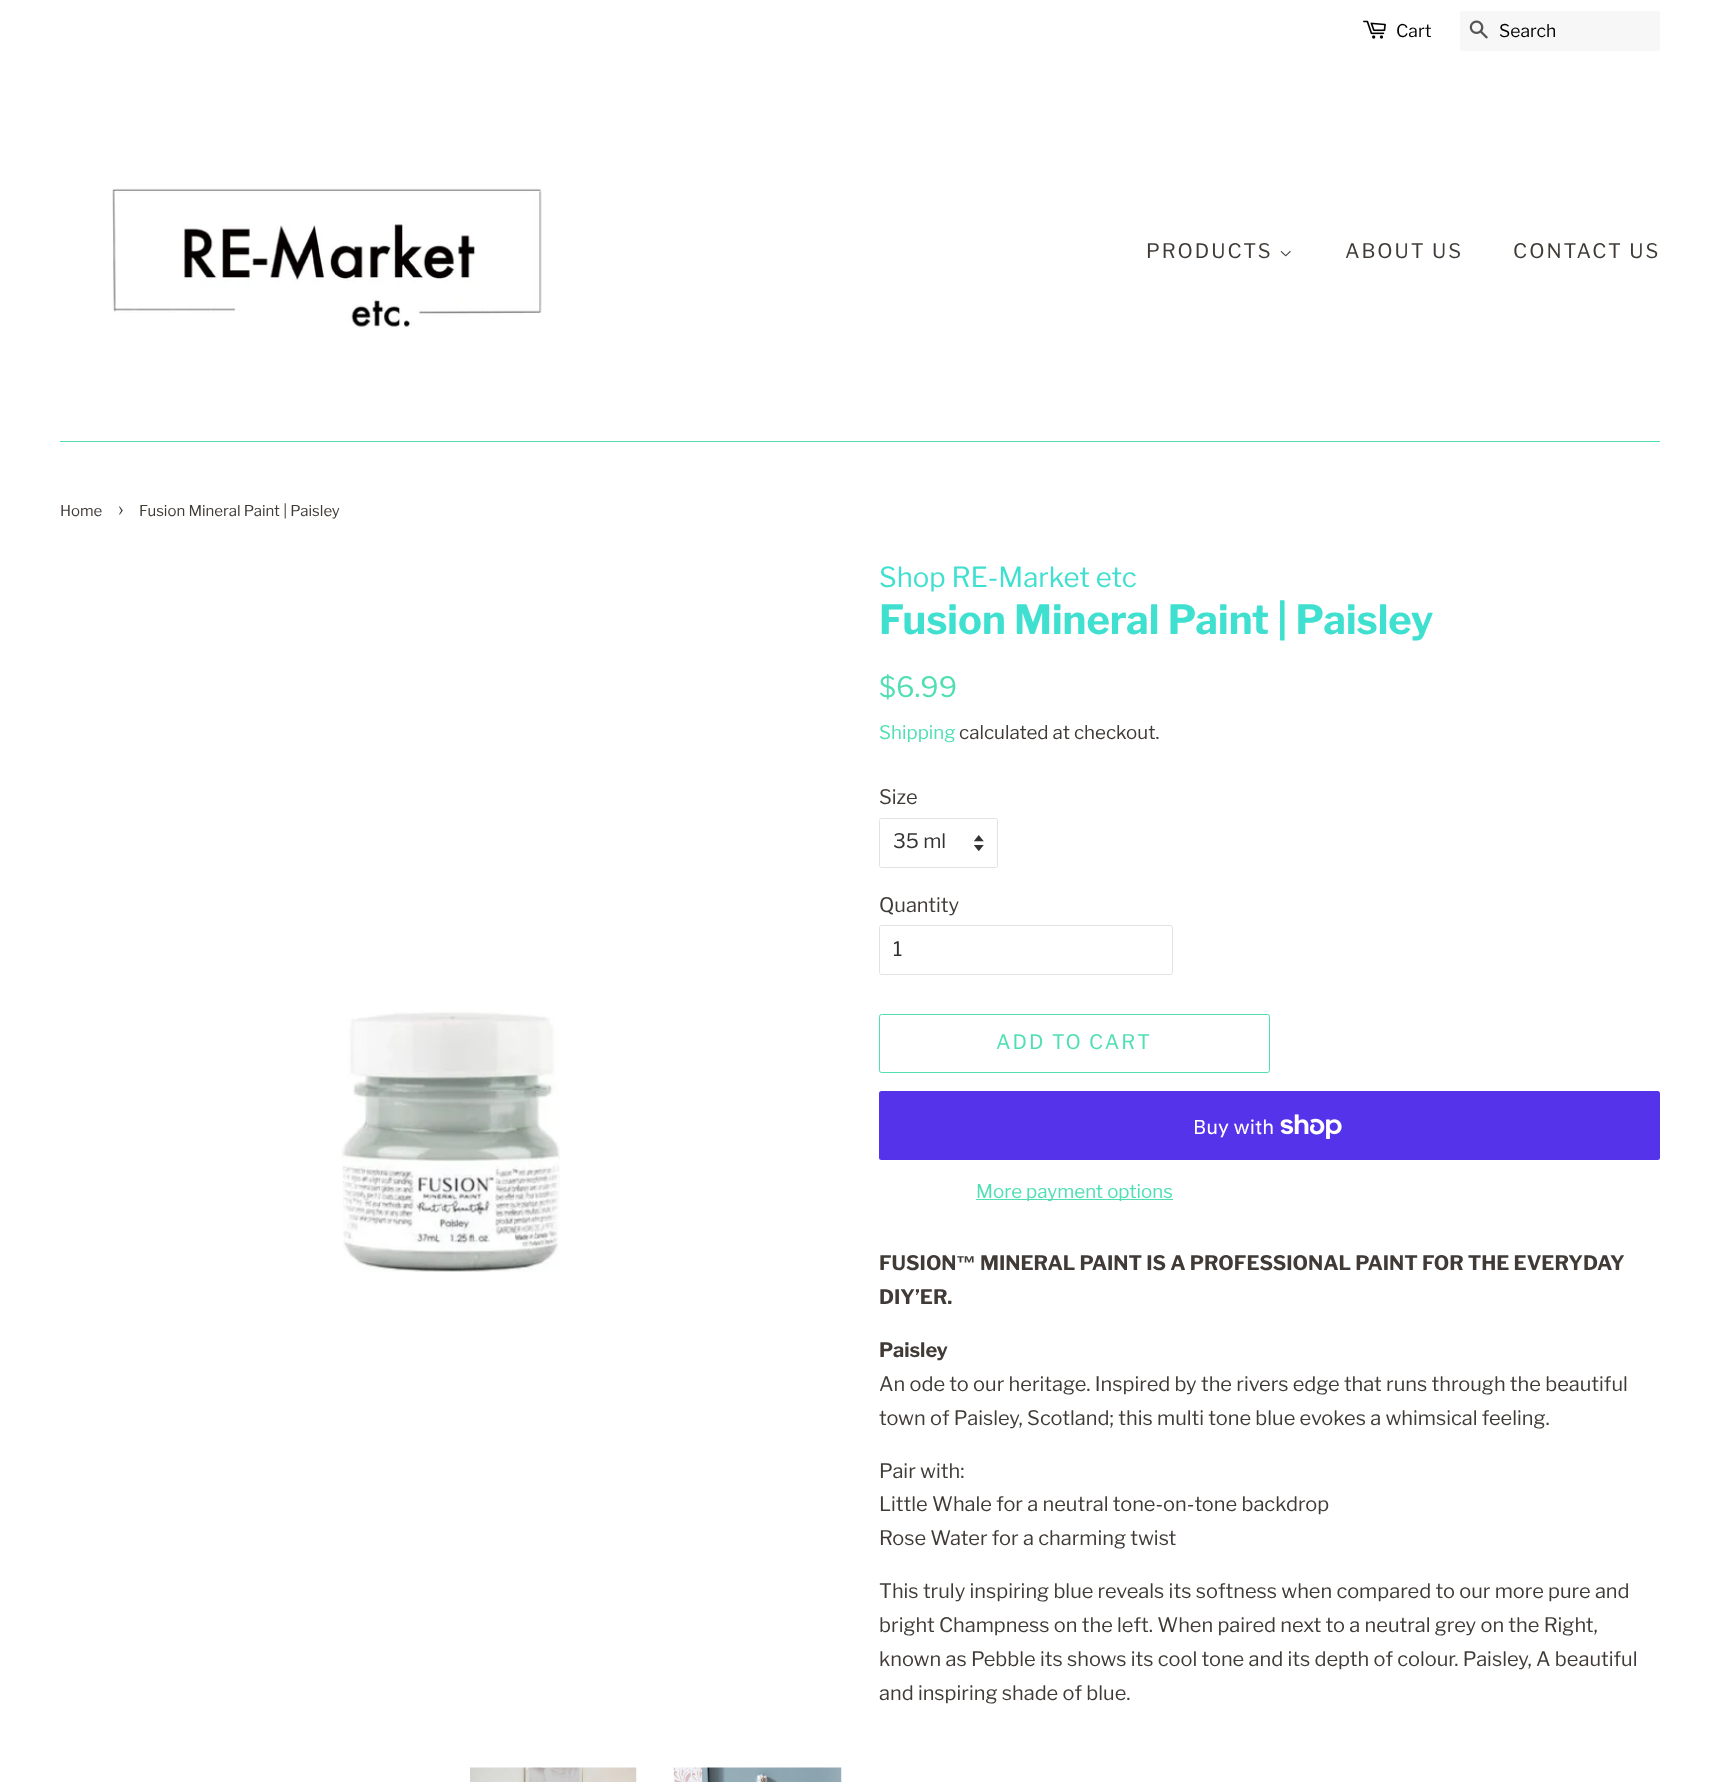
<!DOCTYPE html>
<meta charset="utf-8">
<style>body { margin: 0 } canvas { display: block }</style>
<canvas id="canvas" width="1719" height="1782"></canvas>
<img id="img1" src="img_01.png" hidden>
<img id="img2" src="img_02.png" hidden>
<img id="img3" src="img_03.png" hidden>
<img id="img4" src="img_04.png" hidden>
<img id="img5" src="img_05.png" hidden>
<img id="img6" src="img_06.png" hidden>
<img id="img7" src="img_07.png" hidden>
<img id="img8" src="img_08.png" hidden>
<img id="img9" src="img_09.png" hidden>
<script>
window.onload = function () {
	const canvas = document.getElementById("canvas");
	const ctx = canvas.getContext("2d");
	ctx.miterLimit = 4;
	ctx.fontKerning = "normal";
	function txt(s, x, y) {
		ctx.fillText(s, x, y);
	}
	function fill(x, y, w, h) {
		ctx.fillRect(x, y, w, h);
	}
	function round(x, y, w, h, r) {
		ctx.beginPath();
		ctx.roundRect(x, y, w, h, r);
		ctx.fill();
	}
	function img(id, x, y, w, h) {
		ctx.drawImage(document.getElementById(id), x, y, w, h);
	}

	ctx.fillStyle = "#FFFFFF";
	fill(0, 0, 1719, 1782);
	img("img1", 1363, 20, 23, 19);
	ctx.fillStyle = "#F7F7F7";
	round(1460, 11, 200, 40, 2.5);
	img("img2", 1469, 20, 19, 19);
	ctx.fillStyle = "#50DFB3";
	fill(60, 441, 1600, 1);
	img("img3", 112, 188, 430, 140);
	img("img4", 1280, 250, 11, 7);
	img("img5", 341, 1010, 219, 262);
	img("img6", 470, 1767, 167, 15);
	img("img7", 673, 1767, 169, 15);
	img("img8", 974, 835, 10, 16);
	ctx.beginPath();
	ctx.roundRect(879.5, 818.5, 118, 49, 2);
	ctx.strokeStyle = "#E2E2E1";
	ctx.stroke();
	ctx.beginPath();
	ctx.roundRect(879.5, 925.5, 293, 49, 2);
	ctx.stroke();
	ctx.beginPath();
	ctx.roundRect(879.5, 1014.5, 390, 58, 2);
	ctx.strokeStyle = "#50DFB3";
	ctx.stroke();
	ctx.fillStyle = "#5433EB";
	round(879, 1091, 781, 69, 2.5);
	img("img9", 1280, 1114, 62, 25);
	ctx.fillStyle = "#50DFB3";
	fill(976, 1199, 197, 1);
	ctx.font = "17.5px Libre Franklin";
	ctx.fillStyle = "#000000";
	txt("Cart", 1396, 37);
	txt("Search", 1499, 37);
	ctx.letterSpacing = "2px";
	ctx.font = "20px Libre Franklin";
	ctx.fillStyle = "#403B37";
	txt("PRODUCTS", 1146, 258);
	txt("ABOUT US", 1345, 258);
	txt("CONTACT US", 1513, 258);
	ctx.letterSpacing = "0px";
	ctx.font = "15px Libre Franklin";
	txt("Home", 60, 516);
	ctx.font = "21px Libre Franklin";
	txt("›", 118, 516);
	ctx.font = "15px Libre Franklin";
	txt("Fusion Mineral Paint | Paisley", 139, 516);
	ctx.font = "27.5px Libre Franklin";
	ctx.fillStyle = "#40E0D0";
	txt("Shop RE-Market etc", 879, 587);
	ctx.font = "bold 40px Libre Franklin";
	txt("Fusion Mineral Paint | Paisley", 879, 634);
	ctx.font = "28px Libre Franklin";
	ctx.fillStyle = "#50DFB3";
	txt("$6.99", 879, 697);
	ctx.font = "18.75px Libre Franklin";
	txt("Shipping", 879, 739);
	ctx.fillStyle = "#403B37";
	txt("calculated at checkout.", 959, 739);
	ctx.font = "20px Libre Franklin";
	txt("Size", 879, 804);
	ctx.fillStyle = "#333333";
	txt("35 ml", 893, 848);
	ctx.fillStyle = "#403B37";
	txt("Quantity", 879, 912);
	ctx.fillStyle = "#333333";
	txt("1", 893, 956);
	ctx.letterSpacing = "2px";
	ctx.fillStyle = "#50DFB3";
	txt("ADD TO CART", 996, 1049);
	ctx.letterSpacing = "0px";
	ctx.font = "20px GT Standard";
	ctx.fillStyle = "#FFFFFF";
	txt("Buy with", 1193, 1134);
	ctx.font = "18.75px Libre Franklin";
	ctx.fillStyle = "#50DFB3";
	txt("More payment options", 976, 1198);
	ctx.font = "bold 20px Libre Franklin";
	ctx.fillStyle = "#403B37";
	txt("FUSION", 879, 1270);
	ctx.font = "bold 20px Liberation Sans";
	txt("™", 956, 1270);
	ctx.font = "bold 20px Libre Franklin";
	txt("MINERAL PAINT IS A PROFESSIONAL PAINT FOR THE EVERYDAY", 980, 1270);
	txt("DIY’ER.", 879, 1304);
	txt("Paisley", 879, 1357);
	ctx.font = "20px Libre Franklin";
	txt("An ode to our heritage. Inspired by the rivers edge that runs through the beautiful", 879, 1391);
	txt("town of Paisley, Scotland; this multi tone blue evokes a whimsical feeling.", 879, 1425);
	txt("Pair with:", 879, 1478);
	txt("Little Whale for a neutral tone-on-tone backdrop", 879, 1511);
	txt("Rose Water for a charming twist", 879, 1545);
	txt("This truly inspiring blue reveals its softness when compared to our more pure and", 879, 1598);
	txt("bright Champness on the left. When paired next to a neutral grey on the Right,", 879, 1632);
	txt("known as Pebble its shows its cool tone and its depth of colour. Paisley, A beautiful", 879, 1666);
	txt("and inspiring shade of blue.", 879, 1700);
};
</script>
